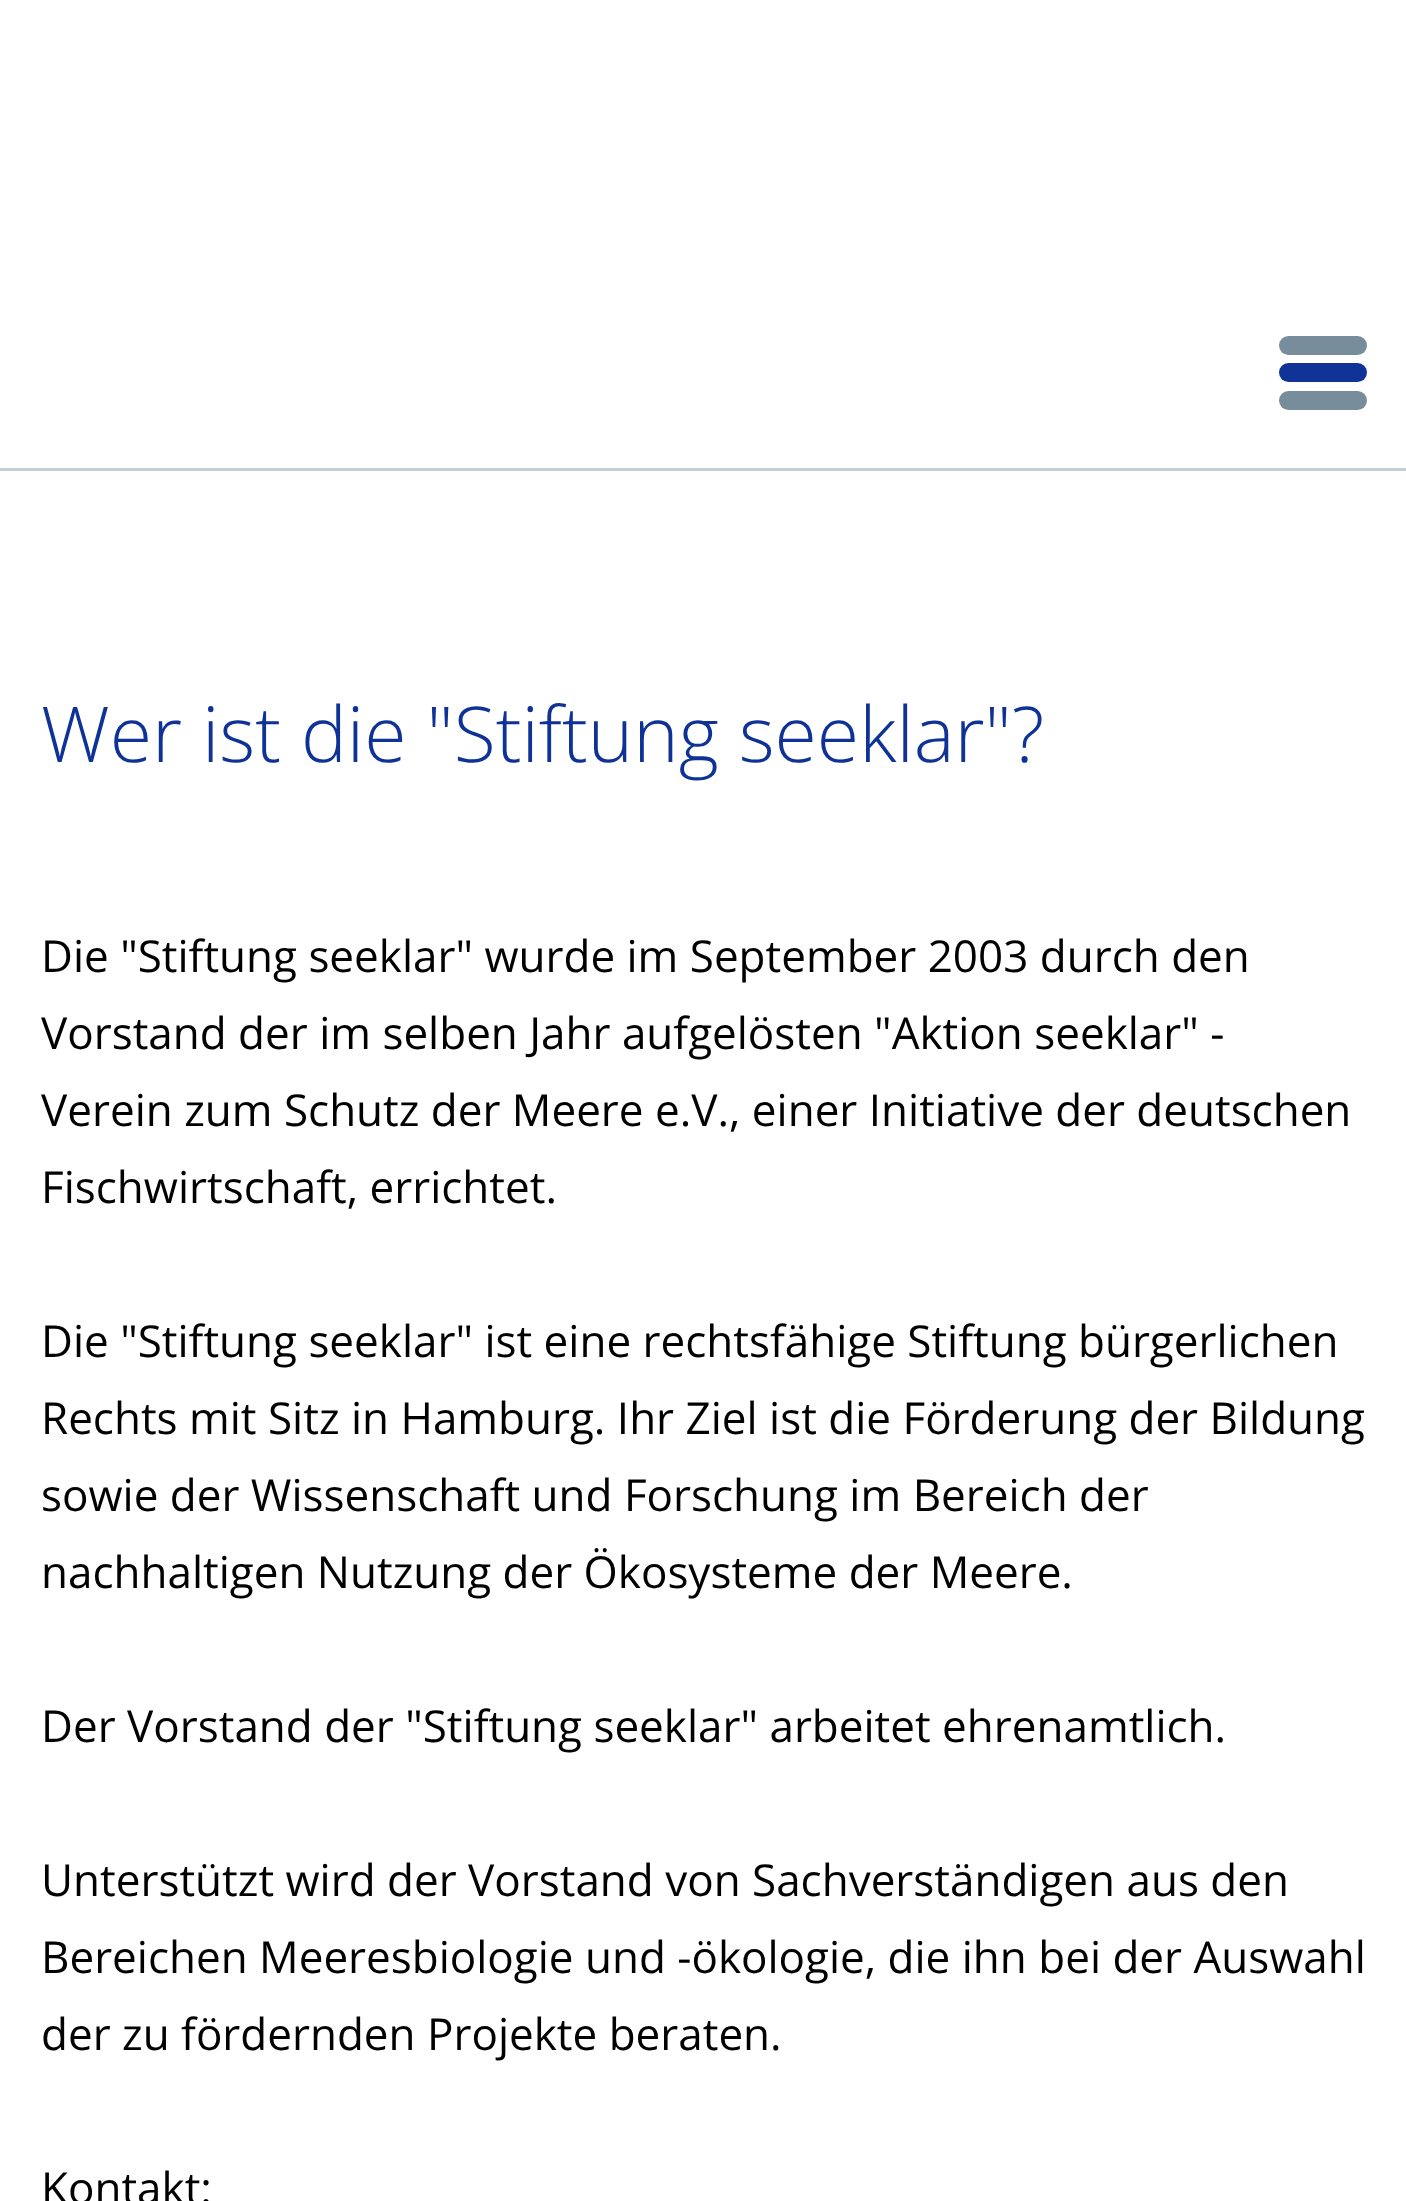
<!DOCTYPE html>
<meta charset="utf-8">
<style>body { margin: 0 } canvas { display: block }</style>
<canvas id="canvas" width="1406" height="2201"></canvas>
<script>
window.onload = function () {
	const canvas = document.getElementById("canvas");
	const ctx = canvas.getContext("2d");
	ctx.miterLimit = 4;
	ctx.fontKerning = "normal";
	function txt(s, x, y) {
		ctx.fillText(s, x, y);
	}
	function fill(x, y, w, h) {
		ctx.fillRect(x, y, w, h);
	}
	function round(x, y, w, h, r) {
		ctx.beginPath();
		ctx.roundRect(x, y, w, h, r);
		ctx.fill();
	}

	ctx.fillStyle = "#FFFFFF";
	fill(0, 0, 1406, 2201);
	ctx.fillStyle = "#C5CED4";
	fill(0, 468, 1406, 3);
	ctx.fillStyle = "#103397";
	round(1279, 363, 88, 19, 9.5);
	ctx.fillStyle = "#778D9C";
	round(1279, 336, 88, 19, 9.5);
	round(1279, 391, 88, 19, 9.5);
	ctx.font = "300 77px Open Sans";
	ctx.fillStyle = "#0F3296";
	txt("Wer ist die \"Stiftung seeklar\"?", 41, 762);
	ctx.font = "44px Open Sans";
	ctx.fillStyle = "#000000";
	txt("Die \"Stiftung seeklar\" wurde im September 2003 durch den", 41, 972);
	txt("Vorstand der im selben Jahr aufgelösten \"Aktion seeklar\" -", 41, 1049);
	txt("Verein zum Schutz der Meere e.V., einer Initiative der deutschen", 41, 1126);
	txt("Fischwirtschaft, errichtet.", 41, 1203);
	txt("Die \"Stiftung seeklar\" ist eine rechtsfähige Stiftung bürgerlichen", 41, 1357);
	txt("Rechts mit Sitz in Hamburg. Ihr Ziel ist die Förderung der Bildung", 41, 1434);
	txt("sowie der Wissenschaft und Forschung im Bereich der", 41, 1511);
	txt("nachhaltigen Nutzung der Ökosysteme der Meere.", 41, 1588);
	txt("Der Vorstand der \"Stiftung seeklar\" arbeitet ehrenamtlich.", 41, 1742);
	txt("Unterstützt wird der Vorstand von Sachverständigen aus den", 41, 1896);
	txt("Bereichen Meeresbiologie und -ökologie, die ihn bei der Auswahl", 41, 1973);
	txt("der zu fördernden Projekte beraten.", 41, 2050);
	txt("Kontakt:", 41, 2204);
};
</script>
